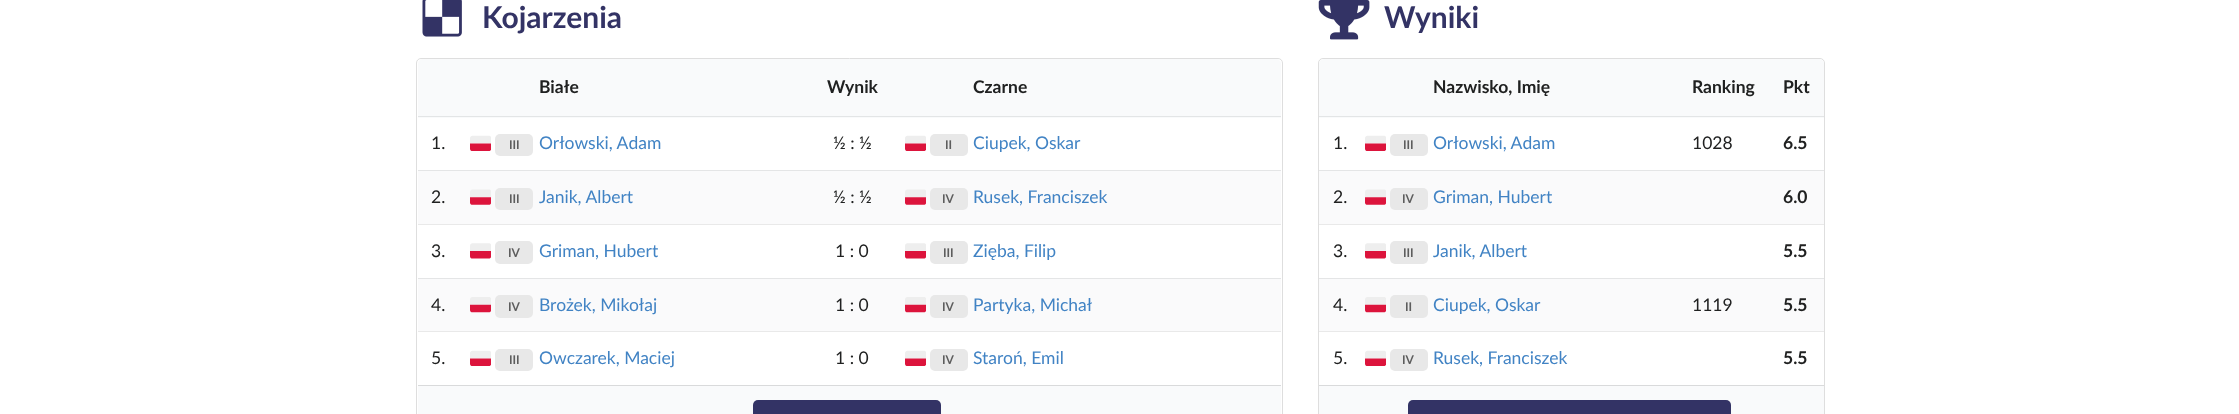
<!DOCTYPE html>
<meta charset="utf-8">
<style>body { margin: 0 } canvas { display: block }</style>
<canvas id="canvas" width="2239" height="414"></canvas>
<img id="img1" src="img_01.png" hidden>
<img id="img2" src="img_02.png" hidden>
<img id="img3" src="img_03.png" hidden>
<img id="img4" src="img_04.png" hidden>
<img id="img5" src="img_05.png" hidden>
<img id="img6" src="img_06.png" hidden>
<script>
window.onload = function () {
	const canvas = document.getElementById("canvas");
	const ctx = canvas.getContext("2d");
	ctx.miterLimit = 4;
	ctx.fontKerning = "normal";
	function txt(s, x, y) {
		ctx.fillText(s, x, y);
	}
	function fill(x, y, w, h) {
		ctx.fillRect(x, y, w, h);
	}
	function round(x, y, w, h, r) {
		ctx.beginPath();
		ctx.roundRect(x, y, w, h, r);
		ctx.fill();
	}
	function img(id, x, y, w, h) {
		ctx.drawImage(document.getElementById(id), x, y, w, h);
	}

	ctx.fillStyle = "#FFFFFF";
	fill(0, 0, 2239, 414);
	img("img1", 422, 0, 40, 37);
	ctx.beginPath();
	ctx.roundRect(416.5, 58.5, 866, 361, 4.5);
	ctx.strokeStyle = "#DEDEDE";
	ctx.stroke();
	ctx.fillStyle = "#F9FAFB";
	ctx.beginPath();
	ctx.roundRect(418, 59, 48, 59, [5, 0, 0, 0]);
	ctx.fill();
	ctx.fillStyle = "#E3E5E6";
	fill(418, 116, 48, 1);
	ctx.fillStyle = "#F9FAFB";
	fill(466, 59, 770, 59);
	ctx.fillStyle = "#E3E5E6";
	fill(466, 116, 770, 1);
	ctx.fillStyle = "#F9FAFB";
	ctx.beginPath();
	ctx.roundRect(1236, 59, 45, 59, [0, 5, 0, 0]);
	ctx.fill();
	ctx.fillStyle = "#E3E5E6";
	fill(1236, 116, 45, 1);
	img("img2", 470, 135, 21, 16);
	ctx.fillStyle = "#E8E8E8";
	round(495, 134, 38, 22, 5);
	img("img2", 905, 135, 21, 16);
	round(930, 134, 38, 22, 5);
	ctx.fillStyle = "#FAFAFB";
	fill(418, 171, 863, 53);
	ctx.fillStyle = "#E4E5E6";
	fill(418, 170, 863, 1);
	img("img3", 470, 189, 21, 16);
	ctx.fillStyle = "#E8E8E8";
	round(495, 188, 38, 22, 5);
	img("img3", 905, 189, 21, 16);
	round(930, 188, 38, 22, 5);
	ctx.fillStyle = "#E9E9E9";
	fill(418, 224, 863, 1);
	img("img4", 470, 243, 21, 16);
	ctx.fillStyle = "#E8E8E8";
	round(495, 241, 38, 23, 5);
	img("img4", 905, 243, 21, 16);
	round(930, 241, 38, 23, 5);
	ctx.fillStyle = "#FAFAFB";
	fill(418, 279, 863, 52);
	ctx.fillStyle = "#E4E5E6";
	fill(418, 278, 863, 1);
	img("img5", 470, 297, 21, 16);
	ctx.fillStyle = "#E8E8E8";
	round(495, 295, 38, 23, 5);
	img("img5", 905, 297, 21, 16);
	round(930, 295, 38, 23, 5);
	ctx.fillStyle = "#E9E9E9";
	fill(418, 331, 863, 1);
	img("img2", 470, 350, 21, 16);
	ctx.fillStyle = "#E8E8E8";
	round(495, 349, 38, 22, 5);
	img("img2", 905, 350, 21, 16);
	round(930, 349, 38, 22, 5);
	ctx.fillStyle = "#F9FAFB";
	fill(418, 386, 863, 28);
	ctx.fillStyle = "#D9DADB";
	fill(418, 385, 863, 1);
	ctx.fillStyle = "#333365";
	round(753, 400, 188, 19, 5);
	img("img6", 1318, 0, 52, 40);
	ctx.beginPath();
	ctx.roundRect(1318.5, 58.5, 506, 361, 4.5);
	ctx.stroke();
	ctx.fillStyle = "#F9FAFB";
	ctx.beginPath();
	ctx.roundRect(1319, 59, 42, 59, [5, 0, 0, 0]);
	ctx.fill();
	ctx.fillStyle = "#E3E5E6";
	fill(1319, 116, 42, 1);
	ctx.fillStyle = "#F9FAFB";
	fill(1361, 59, 408, 59);
	ctx.fillStyle = "#E3E5E6";
	fill(1361, 116, 408, 1);
	ctx.fillStyle = "#F9FAFB";
	ctx.beginPath();
	ctx.roundRect(1769, 59, 55, 59, [0, 5, 0, 0]);
	ctx.fill();
	ctx.fillStyle = "#E3E5E6";
	fill(1769, 116, 55, 1);
	img("img2", 1365, 135, 21, 16);
	ctx.fillStyle = "#E8E8E8";
	round(1390, 134, 38, 22, 5);
	ctx.fillStyle = "#FAFAFB";
	fill(1319, 171, 505, 53);
	ctx.fillStyle = "#E4E5E6";
	fill(1319, 170, 505, 1);
	img("img3", 1365, 189, 21, 16);
	ctx.fillStyle = "#E8E8E8";
	round(1390, 188, 38, 22, 5);
	ctx.fillStyle = "#E9E9E9";
	fill(1319, 224, 505, 1);
	img("img4", 1365, 243, 21, 16);
	ctx.fillStyle = "#E8E8E8";
	round(1390, 241, 38, 23, 5);
	ctx.fillStyle = "#FAFAFB";
	fill(1319, 279, 505, 52);
	ctx.fillStyle = "#E4E5E6";
	fill(1319, 278, 505, 1);
	img("img5", 1365, 297, 21, 16);
	ctx.fillStyle = "#E8E8E8";
	round(1390, 295, 38, 23, 5);
	ctx.fillStyle = "#E9E9E9";
	fill(1319, 331, 505, 1);
	img("img2", 1365, 350, 21, 16);
	ctx.fillStyle = "#E8E8E8";
	round(1390, 349, 38, 22, 5);
	ctx.fillStyle = "#F9FAFB";
	fill(1319, 386, 505, 28);
	ctx.fillStyle = "#D9DADB";
	fill(1319, 385, 505, 1);
	ctx.fillStyle = "#333365";
	round(1408, 400, 323, 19, 5);
	ctx.font = "bold 30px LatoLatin";
	txt("Kojarzenia", 482, 28);
	ctx.font = "bold 17.5px LatoLatin";
	ctx.fillStyle = "#202121";
	txt("Białe", 539, 93);
	txt("Wynik", 827, 93);
	txt("Czarne", 973, 93);
	ctx.font = "17.5px LatoLatin";
	txt("1.", 431, 149);
	ctx.font = "bold 12px LatoLatin";
	ctx.fillStyle = "#5D5D5D";
	txt("III", 509, 149);
	ctx.font = "17.5px LatoLatin";
	ctx.fillStyle = "#4183C4";
	txt("Orłowski, Adam", 539, 149);
	ctx.fillStyle = "#202121";
	txt("½ : ½", 833, 149);
	ctx.font = "bold 12px LatoLatin";
	ctx.fillStyle = "#5D5D5D";
	txt("II", 945, 149);
	ctx.font = "17.5px LatoLatin";
	ctx.fillStyle = "#4183C4";
	txt("Ciupek, Oskar", 973, 149);
	ctx.fillStyle = "#202121";
	txt("2.", 431, 203);
	ctx.font = "bold 12px LatoLatin";
	ctx.fillStyle = "#5D5D5D";
	txt("III", 509, 203);
	ctx.font = "17.5px LatoLatin";
	ctx.fillStyle = "#4183C4";
	txt("Janik, Albert", 539, 203);
	ctx.fillStyle = "#202121";
	txt("½ : ½", 833, 203);
	ctx.font = "bold 12px LatoLatin";
	ctx.fillStyle = "#5D5D5D";
	txt("IV", 942, 203);
	ctx.font = "17.5px LatoLatin";
	ctx.fillStyle = "#4183C4";
	txt("Rusek, Franciszek", 973, 203);
	ctx.fillStyle = "#202121";
	txt("3.", 431, 257);
	ctx.font = "bold 12px LatoLatin";
	ctx.fillStyle = "#5D5D5D";
	txt("IV", 508, 257);
	ctx.font = "17.5px LatoLatin";
	ctx.fillStyle = "#4183C4";
	txt("Griman, Hubert", 539, 257);
	ctx.fillStyle = "#202121";
	txt("1 : 0", 835, 257);
	ctx.font = "bold 12px LatoLatin";
	ctx.fillStyle = "#5D5D5D";
	txt("III", 943, 257);
	ctx.font = "17.5px LatoLatin";
	ctx.fillStyle = "#4183C4";
	txt("Zięba, Filip", 973, 257);
	ctx.fillStyle = "#202121";
	txt("4.", 431, 311);
	ctx.font = "bold 12px LatoLatin";
	ctx.fillStyle = "#5D5D5D";
	txt("IV", 508, 311);
	ctx.font = "17.5px LatoLatin";
	ctx.fillStyle = "#4183C4";
	txt("Brożek, Mikołaj", 539, 311);
	ctx.fillStyle = "#202121";
	txt("1 : 0", 835, 311);
	ctx.font = "bold 12px LatoLatin";
	ctx.fillStyle = "#5D5D5D";
	txt("IV", 942, 311);
	ctx.font = "17.5px LatoLatin";
	ctx.fillStyle = "#4183C4";
	txt("Partyka, Michał", 973, 311);
	ctx.fillStyle = "#202121";
	txt("5.", 431, 364);
	ctx.font = "bold 12px LatoLatin";
	ctx.fillStyle = "#5D5D5D";
	txt("III", 509, 364);
	ctx.font = "17.5px LatoLatin";
	ctx.fillStyle = "#4183C4";
	txt("Owczarek, Maciej", 539, 364);
	ctx.fillStyle = "#202121";
	txt("1 : 0", 835, 364);
	ctx.font = "bold 12px LatoLatin";
	ctx.fillStyle = "#5D5D5D";
	txt("IV", 942, 364);
	ctx.font = "17.5px LatoLatin";
	ctx.fillStyle = "#4183C4";
	txt("Staroń, Emil", 973, 364);
	ctx.font = "bold 30px LatoLatin";
	ctx.fillStyle = "#333365";
	txt("Wyniki", 1384, 28);
	ctx.font = "bold 17.5px LatoLatin";
	ctx.fillStyle = "#202121";
	txt("Nazwisko, Imię", 1433, 93);
	txt("Ranking", 1692, 93);
	txt("Pkt", 1783, 93);
	ctx.font = "17.5px LatoLatin";
	txt("1.", 1333, 149);
	ctx.font = "bold 12px LatoLatin";
	ctx.fillStyle = "#5D5D5D";
	txt("III", 1403, 149);
	ctx.font = "17.5px LatoLatin";
	ctx.fillStyle = "#4183C4";
	txt("Orłowski, Adam", 1433, 149);
	ctx.fillStyle = "#202121";
	txt("1028", 1692, 149);
	ctx.font = "bold 17.5px LatoLatin";
	txt("6.5", 1783, 149);
	ctx.font = "17.5px LatoLatin";
	txt("2.", 1333, 203);
	ctx.font = "bold 12px LatoLatin";
	ctx.fillStyle = "#5D5D5D";
	txt("IV", 1402, 203);
	ctx.font = "17.5px LatoLatin";
	ctx.fillStyle = "#4183C4";
	txt("Griman, Hubert", 1433, 203);
	ctx.font = "bold 17.5px LatoLatin";
	ctx.fillStyle = "#202121";
	txt("6.0", 1783, 203);
	ctx.font = "17.5px LatoLatin";
	txt("3.", 1333, 257);
	ctx.font = "bold 12px LatoLatin";
	ctx.fillStyle = "#5D5D5D";
	txt("III", 1403, 257);
	ctx.font = "17.5px LatoLatin";
	ctx.fillStyle = "#4183C4";
	txt("Janik, Albert", 1433, 257);
	ctx.font = "bold 17.5px LatoLatin";
	ctx.fillStyle = "#202121";
	txt("5.5", 1783, 257);
	ctx.font = "17.5px LatoLatin";
	txt("4.", 1333, 311);
	ctx.font = "bold 12px LatoLatin";
	ctx.fillStyle = "#5D5D5D";
	txt("II", 1405, 311);
	ctx.font = "17.5px LatoLatin";
	ctx.fillStyle = "#4183C4";
	txt("Ciupek, Oskar", 1433, 311);
	ctx.fillStyle = "#202121";
	txt("1119", 1692, 311);
	ctx.font = "bold 17.5px LatoLatin";
	txt("5.5", 1783, 311);
	ctx.font = "17.5px LatoLatin";
	txt("5.", 1333, 364);
	ctx.font = "bold 12px LatoLatin";
	ctx.fillStyle = "#5D5D5D";
	txt("IV", 1402, 364);
	ctx.font = "17.5px LatoLatin";
	ctx.fillStyle = "#4183C4";
	txt("Rusek, Franciszek", 1433, 364);
	ctx.font = "bold 17.5px LatoLatin";
	ctx.fillStyle = "#202121";
	txt("5.5", 1783, 364);
};
</script>
